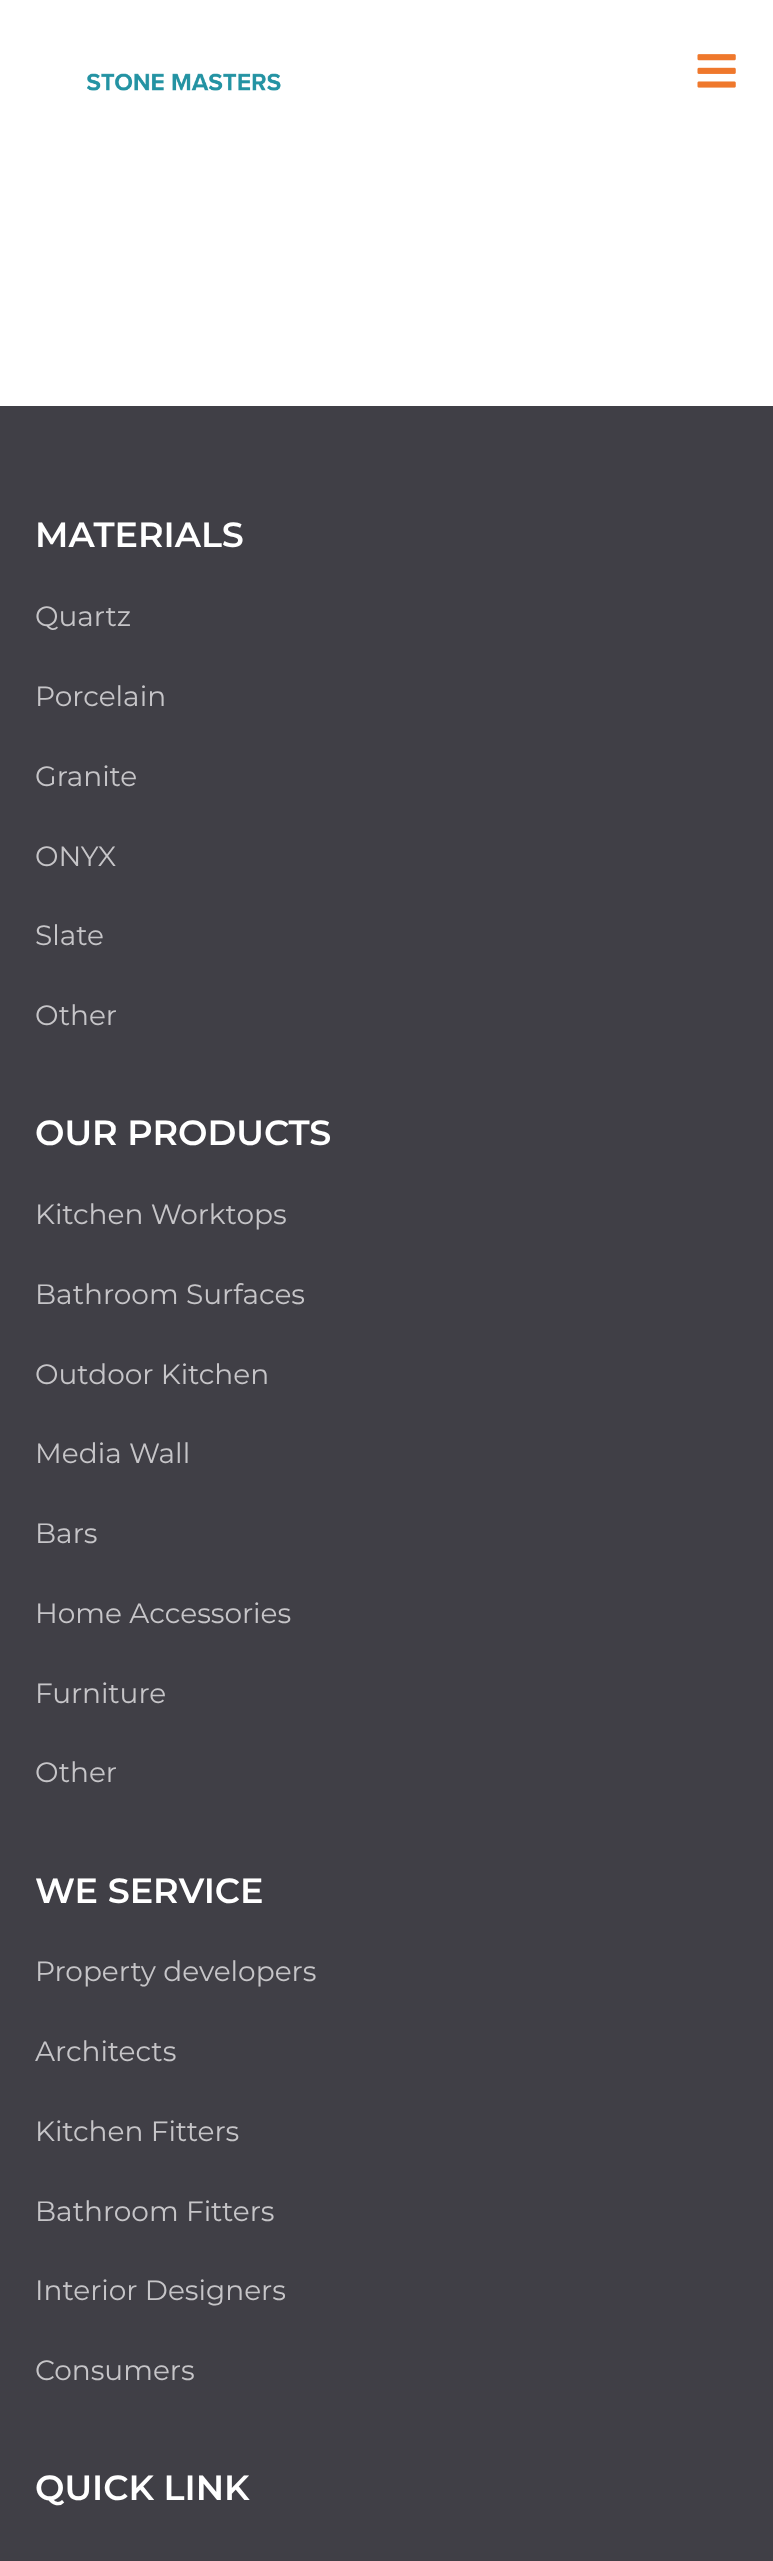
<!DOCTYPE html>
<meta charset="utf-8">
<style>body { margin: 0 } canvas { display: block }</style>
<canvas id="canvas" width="773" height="2561"></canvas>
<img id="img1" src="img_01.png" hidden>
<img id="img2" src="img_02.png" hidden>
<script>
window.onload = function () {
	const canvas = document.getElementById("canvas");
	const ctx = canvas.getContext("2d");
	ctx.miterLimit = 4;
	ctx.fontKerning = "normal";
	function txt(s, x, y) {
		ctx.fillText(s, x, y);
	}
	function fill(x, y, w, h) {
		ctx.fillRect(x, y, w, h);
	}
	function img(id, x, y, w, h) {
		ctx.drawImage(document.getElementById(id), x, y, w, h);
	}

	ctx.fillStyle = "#FFFFFF";
	fill(0, 0, 773, 2561);
	img("img1", 87, 73, 194, 18);
	img("img2", 697, 54, 39, 34);
	ctx.fillStyle = "#403F46";
	fill(0, 406, 773, 2155);
	ctx.font = "600 35px Montserrat";
	ctx.fillStyle = "#FFFFFF";
	txt("MATERIALS", 35, 547);
	ctx.font = "28px Montserrat";
	ctx.fillStyle = "#C6C5C8";
	txt("Quartz", 35, 626);
	txt("Porcelain", 35, 706);
	txt("Granite", 35, 786);
	txt("ONYX", 35, 866);
	txt("Slate", 35, 945);
	txt("Other", 35, 1025);
	ctx.font = "600 35px Montserrat";
	ctx.fillStyle = "#FFFFFF";
	txt("OUR PRODUCTS", 35, 1145);
	ctx.font = "28px Montserrat";
	ctx.fillStyle = "#C6C5C8";
	txt("Kitchen Worktops", 35, 1224);
	txt("Bathroom Surfaces", 35, 1304);
	txt("Outdoor Kitchen", 35, 1384);
	txt("Media Wall", 35, 1463);
	txt("Bars", 35, 1543);
	txt("Home Accessories", 35, 1623);
	txt("Furniture", 35, 1703);
	txt("Other", 35, 1782);
	ctx.font = "600 35px Montserrat";
	ctx.fillStyle = "#FFFFFF";
	txt("WE SERVICE", 35, 1903);
	ctx.font = "28px Montserrat";
	ctx.fillStyle = "#C6C5C8";
	txt("Property developers", 35, 1981);
	txt("Architects", 35, 2061);
	txt("Kitchen Fitters", 35, 2141);
	txt("Bathroom Fitters", 35, 2221);
	txt("Interior Designers", 35, 2300);
	txt("Consumers", 35, 2380);
	ctx.font = "600 35px Montserrat";
	ctx.fillStyle = "#FFFFFF";
	txt("QUICK LINK", 35, 2500);
};
</script>
